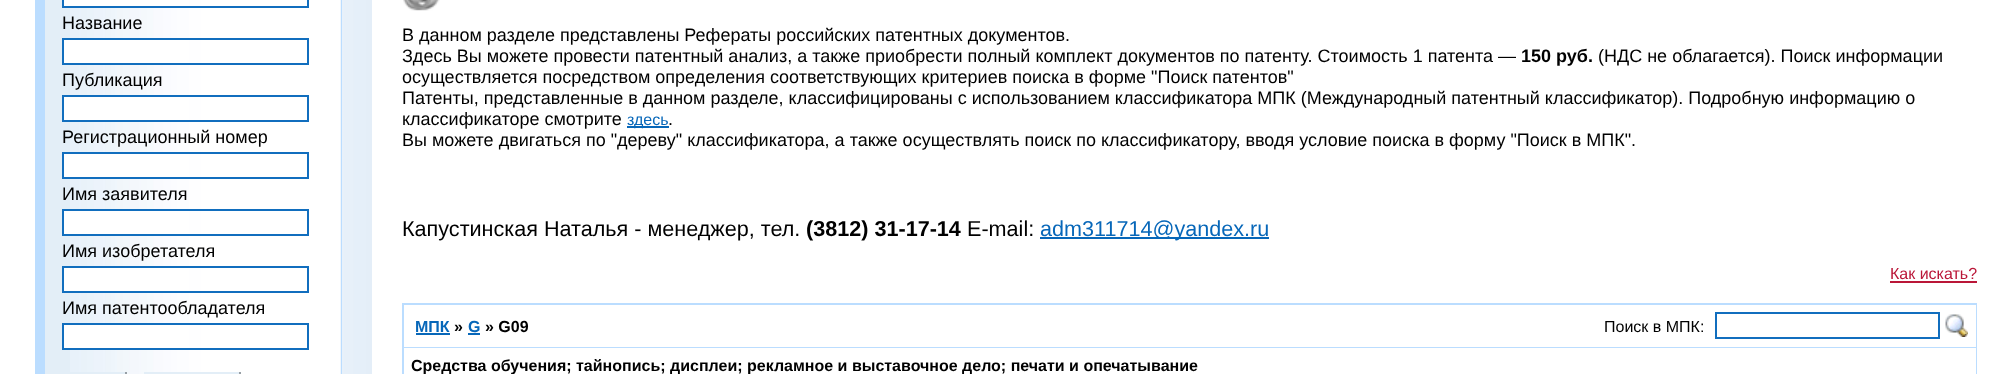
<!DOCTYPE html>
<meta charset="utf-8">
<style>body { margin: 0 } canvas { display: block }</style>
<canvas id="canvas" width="2011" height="374"></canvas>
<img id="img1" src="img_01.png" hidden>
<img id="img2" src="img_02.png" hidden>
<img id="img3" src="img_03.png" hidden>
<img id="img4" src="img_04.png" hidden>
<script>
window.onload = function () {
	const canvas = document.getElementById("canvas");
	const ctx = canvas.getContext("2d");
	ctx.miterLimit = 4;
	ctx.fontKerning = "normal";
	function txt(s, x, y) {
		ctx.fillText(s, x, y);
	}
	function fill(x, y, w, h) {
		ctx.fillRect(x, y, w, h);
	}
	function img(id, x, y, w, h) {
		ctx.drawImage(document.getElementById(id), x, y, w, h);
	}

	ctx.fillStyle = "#FFFFFF";
	fill(0, 0, 2011, 374);
	img("img1", 342, 0, 30, 374);
	ctx.fillStyle = "#BBDDFF";
	fill(35, 0, 307, 374);
	ctx.fillStyle = "#E3EEF7";
	fill(45, 0, 296, 374);
	img("img2", 70, 0, 271, 374);
	ctx.fillStyle = "#FFFFFF";
	fill(62, 0, 127, 6);
	ctx.strokeStyle = "#116EBE";
	ctx.lineWidth = 2;
	ctx.strokeRect(63, -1, 245, 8);
	fill(64, 40, 125, 23);
	ctx.strokeRect(63, 39, 245, 25);
	fill(64, 97, 125, 23);
	ctx.strokeRect(63, 96, 245, 25);
	fill(64, 154, 125, 23);
	ctx.strokeRect(63, 153, 245, 25);
	fill(64, 211, 125, 23);
	ctx.strokeRect(63, 210, 245, 25);
	fill(64, 268, 125, 23);
	ctx.strokeRect(63, 267, 245, 25);
	fill(64, 325, 125, 23);
	ctx.strokeRect(63, 324, 245, 25);
	ctx.fillStyle = "#E3EEF7";
	fill(70, 372, 56, 2);
	ctx.fillStyle = "#979FA5";
	fill(125, 372, 2, 2);
	ctx.fillStyle = "#E3EEF7";
	fill(144, 372, 96, 2);
	ctx.fillStyle = "#979FA5";
	fill(239, 372, 2, 2);
	img("img3", 403, 0, 37, 11);
	ctx.fillStyle = "#0767B9";
	fill(627, 126, 42, 2);
	fill(1040, 237, 229, 2);
	ctx.fillStyle = "#BA1638";
	fill(1890, 281, 87, 2);
	ctx.fillStyle = "#BBDDFF";
	fill(402, 303, 1575, 71);
	ctx.fillStyle = "#FFFFFF";
	fill(404, 305, 1572, 42);
	ctx.fillStyle = "#0767B9";
	fill(416, 333, 34, 2);
	fill(468, 333, 12, 2);
	ctx.strokeRect(1716, 313, 223, 25);
	img("img4", 1945, 314, 23, 23);
	ctx.fillStyle = "#FFFFFF";
	fill(404, 348, 1572, 26);
	ctx.font = "18px Liberation Sans";
	ctx.fillStyle = "#000000";
	txt("Название", 62, 29);
	txt("Публикация", 62, 86);
	txt("Регистрационный номер", 62, 143);
	txt("Имя заявителя", 62, 200);
	txt("Имя изобретателя", 62, 257);
	txt("Имя патентообладателя", 62, 314);
	txt("В данном разделе представлены Рефераты российских патентных документов.", 402, 41);
	txt("Здесь Вы можете провести патентный анализ, а также приобрести полный комплект документов по патенту. Стоимость 1 патента —", 402, 62);
	ctx.font = "bold 18px Liberation Sans";
	txt("150 руб.", 1521, 62);
	ctx.font = "18px Liberation Sans";
	txt("(НДС не облагается). Поиск информации", 1598, 62);
	txt("осуществляется посредством определения соответствующих критериев поиска в форме \"Поиск патентов\"", 402, 83);
	txt("Патенты, представленные в данном разделе, классифицированы с использованием классификатора МПК (Международный патентный классификатор). Подробную информацию о", 402, 104);
	txt("классификаторе смотрите", 402, 125);
	ctx.font = "16px Liberation Sans";
	ctx.fillStyle = "#0767B9";
	txt("здесь", 627, 125);
	ctx.font = "18px Liberation Sans";
	ctx.fillStyle = "#000000";
	txt(".", 668, 125);
	txt("Вы можете двигаться по \"дереву\" классификатора, а также осуществлять поиск по классификатору, вводя условие поиска в форму \"Поиск в МПК\".", 402, 146);
	ctx.font = "21.6px Liberation Sans";
	txt("Капустинская Наталья - менеджер, тел.", 402, 236);
	ctx.font = "bold 21.6px Liberation Sans";
	txt("(3812) 31-17-14", 806, 236);
	ctx.font = "21.6px Liberation Sans";
	txt("E-mail:", 967, 236);
	ctx.fillStyle = "#0767B9";
	txt("adm311714@yandex.ru", 1040, 236);
	ctx.font = "16px Liberation Sans";
	ctx.fillStyle = "#BA1638";
	txt("Как искать?", 1890, 279);
	ctx.font = "bold 16px Liberation Sans";
	ctx.fillStyle = "#0767B9";
	txt("МПК", 415, 332);
	ctx.fillStyle = "#000000";
	txt("»", 454, 332);
	ctx.fillStyle = "#0767B9";
	txt("G", 468, 332);
	ctx.fillStyle = "#000000";
	txt("» G09", 485, 332);
	ctx.font = "16px Liberation Sans";
	txt("Поиск в МПК:", 1604, 332);
	ctx.font = "bold 16px Liberation Sans";
	txt("Средства обучения; тайнопись; дисплеи; рекламное и выставочное дело; печати и опечатывание", 411, 371);
};
</script>
